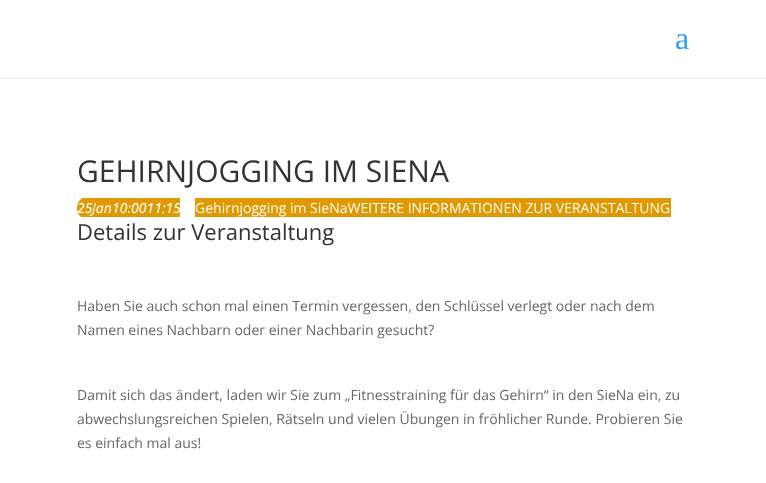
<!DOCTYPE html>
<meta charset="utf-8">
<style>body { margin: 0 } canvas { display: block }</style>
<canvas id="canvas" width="766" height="483"></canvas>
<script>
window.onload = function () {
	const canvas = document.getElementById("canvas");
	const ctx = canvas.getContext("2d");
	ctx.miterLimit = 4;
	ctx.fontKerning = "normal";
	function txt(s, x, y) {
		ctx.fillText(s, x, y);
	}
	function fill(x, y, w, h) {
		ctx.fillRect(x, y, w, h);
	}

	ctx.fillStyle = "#FFFFFF";
	fill(0, 0, 766, 483);
	ctx.fillStyle = "#E6E6E6";
	fill(0, 78, 766, 1);
	ctx.save();
	ctx.beginPath();
	ctx.roundRect(77, 196, 612, 24, 12);
	ctx.clip();
	ctx.fillStyle = "#E09900";
	fill(77, 198, 15, 19);
	ctx.restore();
	ctx.fillStyle = "#E09900";
	fill(92, 198, 88, 19);
	fill(195, 198, 476, 19);
	ctx.font = "32px Liberation Serif";
	ctx.fillStyle = "#2EA3F2";
	txt("a", 675, 49);
	ctx.font = "30px Open Sans";
	ctx.fillStyle = "#333333";
	txt("GEHIRNJOGGING IM SIENA", 77, 182);
	ctx.save();
	ctx.beginPath();
	ctx.roundRect(77, 196, 612, 24, 12);
	ctx.clip();
	ctx.font = "italic 500 14px Open Sans";
	ctx.fillStyle = "#FFFFFF";
	txt("25", 77, 213);
	ctx.restore();
	ctx.font = "italic 14px Open Sans";
	ctx.fillStyle = "#FFFFFF";
	txt("Jan", 92, 213);
	ctx.font = "italic 500 14px Open Sans";
	txt("10:0011:15", 112, 213);
	ctx.font = "14px Open Sans";
	txt("Gehirnjogging im SieNaWEITERE INFORMATIONEN ZUR VERANSTALTUNG", 195, 213);
	ctx.font = "22px Open Sans";
	ctx.fillStyle = "#333333";
	txt("Details zur Veranstaltung", 77, 240);
	ctx.font = "14px Open Sans";
	ctx.fillStyle = "#666666";
	txt("Haben Sie auch schon mal einen Termin vergessen, den Schlüssel verlegt oder nach dem", 77, 311);
	txt("Namen eines Nachbarn oder einer Nachbarin gesucht?", 77, 335);
	txt("Damit sich das ändert, laden wir Sie zum „Fitnesstraining für das Gehirn“ in den SieNa ein, zu", 77, 400);
	txt("abwechslungsreichen Spielen, Rätseln und vielen Übungen in fröhlicher Runde. Probieren Sie", 77, 424);
	txt("es einfach mal aus!", 77, 448);
};
</script>
